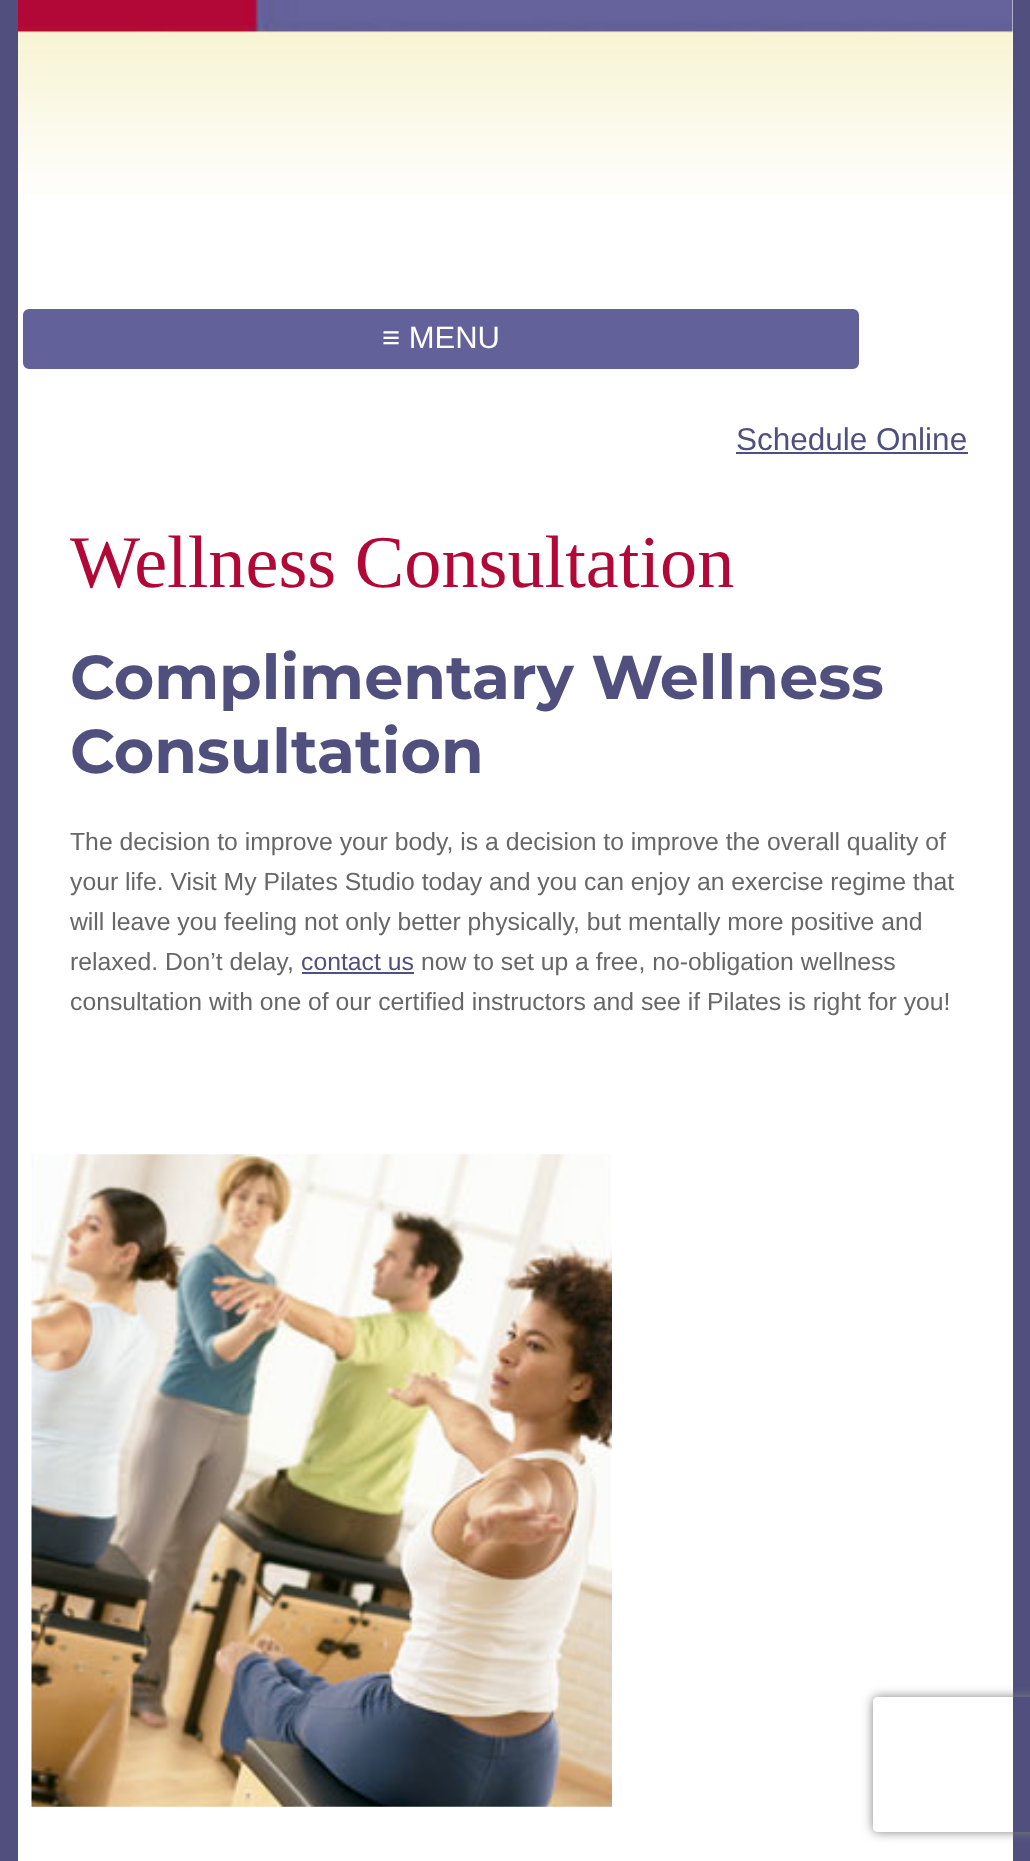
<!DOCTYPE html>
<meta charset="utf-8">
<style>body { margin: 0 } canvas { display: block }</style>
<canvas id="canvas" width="1030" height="1861"></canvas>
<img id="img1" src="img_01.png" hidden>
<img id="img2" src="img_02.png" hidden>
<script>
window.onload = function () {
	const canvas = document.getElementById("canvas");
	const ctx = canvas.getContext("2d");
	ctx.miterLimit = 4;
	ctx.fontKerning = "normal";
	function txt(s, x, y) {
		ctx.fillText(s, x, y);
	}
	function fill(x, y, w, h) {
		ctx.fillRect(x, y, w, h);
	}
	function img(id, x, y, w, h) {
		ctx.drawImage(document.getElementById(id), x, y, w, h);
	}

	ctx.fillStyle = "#514F7D";
	fill(0, 0, 1030, 1861);
	ctx.fillStyle = "#FFFFFF";
	fill(18, 0, 995, 1861);
	img("img1", 18, 0, 995, 194);
	ctx.fillStyle = "#63619A";
	ctx.beginPath();
	ctx.roundRect(20.5, 306.5, 841, 65, 8.5);
	ctx.fill();
	ctx.strokeStyle = "#FFFFFF";
	ctx.lineWidth = 5;
	ctx.stroke();
	ctx.fillStyle = "#514F7D";
	fill(736, 452, 232, 2);
	fill(302, 972, 112, 2);
	img("img2", 31, 1154, 581, 653);
	ctx.save();
	ctx.beginPath();
	ctx.moveTo(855, 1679);
	ctx.lineTo(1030, 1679);
	ctx.lineTo(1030, 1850);
	ctx.lineTo(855, 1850);
	ctx.closePath();
	ctx.moveTo(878, 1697);
	ctx.lineTo(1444, 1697);
	ctx.bezierCurveTo(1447, 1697, 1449, 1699, 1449, 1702);
	ctx.lineTo(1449, 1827);
	ctx.bezierCurveTo(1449, 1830, 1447, 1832, 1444, 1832);
	ctx.lineTo(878, 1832);
	ctx.bezierCurveTo(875, 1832, 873, 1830, 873, 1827);
	ctx.lineTo(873, 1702);
	ctx.bezierCurveTo(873, 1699, 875, 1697, 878, 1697);
	ctx.closePath();
	ctx.clip("evenodd");
	ctx.fillStyle = "#808080";
	ctx.filter = "blur(5.5px)";
	ctx.beginPath();
	ctx.roundRect(873, 1697, 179, 135, 5);
	ctx.fill();
	ctx.filter = "none";
	ctx.restore();
	ctx.font = "31px Liberation Sans";
	ctx.fillStyle = "#FFFFFF";
	txt("≡ MENU", 382, 348);
	ctx.font = "31.5px Liberation Sans";
	ctx.fillStyle = "#514F7D";
	txt("Schedule Online", 736, 450);
	ctx.font = "74.25px Liberation Serif";
	ctx.fillStyle = "#B20837";
	txt("Wellness Consultation", 70, 587);
	ctx.font = "bold 61.9px Montserrat";
	ctx.fillStyle = "#514F7D";
	txt("Complimentary Wellness", 70, 699);
	txt("Consultation", 70, 773);
	ctx.font = "24.75px Liberation Sans";
	ctx.fillStyle = "#676767";
	txt("The decision to improve your body, is a decision to improve the overall quality of", 70, 850);
	txt("your life. Visit My Pilates Studio today and you can enjoy an exercise regime that", 70, 890);
	txt("will leave you feeling not only better physically, but mentally more positive and", 70, 930);
	txt("relaxed. Don’t delay,", 70, 970);
	ctx.fillStyle = "#514F7D";
	txt("contact us", 301, 970);
	ctx.fillStyle = "#676767";
	txt("now to set up a free, no-obligation wellness", 421, 970);
	txt("consultation with one of our certified instructors and see if Pilates is right for you!", 70, 1010);
};
</script>
